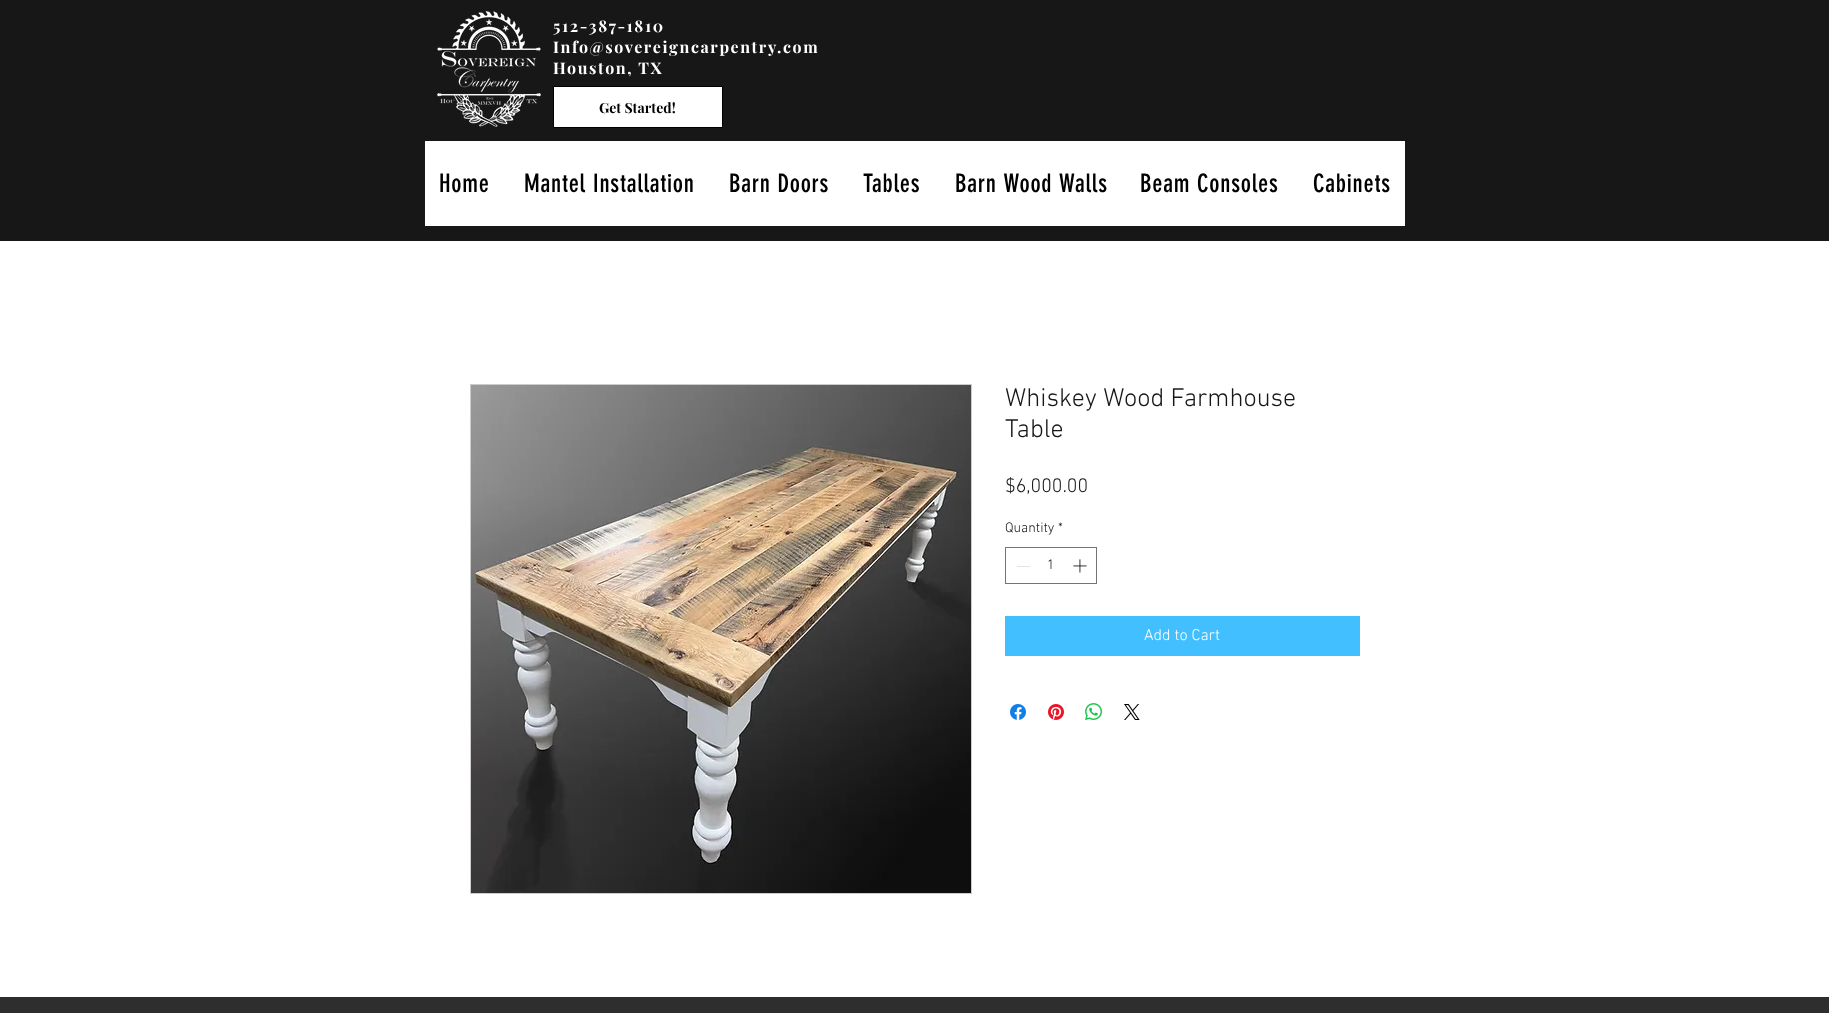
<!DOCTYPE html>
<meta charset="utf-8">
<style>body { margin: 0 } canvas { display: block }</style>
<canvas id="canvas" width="1829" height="1013"></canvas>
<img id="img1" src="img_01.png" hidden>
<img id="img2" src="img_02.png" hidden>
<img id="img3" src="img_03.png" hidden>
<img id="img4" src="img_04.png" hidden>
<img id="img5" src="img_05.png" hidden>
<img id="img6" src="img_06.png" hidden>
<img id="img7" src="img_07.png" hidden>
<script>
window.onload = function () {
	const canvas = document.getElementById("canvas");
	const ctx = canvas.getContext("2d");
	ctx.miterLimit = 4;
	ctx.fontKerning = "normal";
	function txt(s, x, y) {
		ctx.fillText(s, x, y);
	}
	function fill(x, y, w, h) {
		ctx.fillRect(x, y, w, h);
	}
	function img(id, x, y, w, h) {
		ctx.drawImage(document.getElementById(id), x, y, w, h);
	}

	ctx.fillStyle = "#FFFFFF";
	fill(0, 0, 1829, 1013);
	ctx.fillStyle = "#171717";
	fill(0, 0, 1829, 241);
	img("img1", 437, 11, 104, 116);
	ctx.fillStyle = "#FFFFFF";
	ctx.beginPath();
	ctx.rect(553.5, 86.5, 169, 41);
	ctx.fill();
	ctx.strokeStyle = "#000000";
	ctx.stroke();
	fill(425, 141, 980, 85);
	ctx.strokeStyle = "#CCCCCC";
	ctx.strokeRect(470.5, 384.5, 501, 509);
	img("img2", 471, 385, 500, 508);
	ctx.strokeStyle = "#747474";
	ctx.strokeRect(1005.5, 547.5, 91, 36);
	ctx.fillStyle = "#E3E3E3";
	fill(1017, 566, 13, 1);
	img("img3", 1073, 559, 14, 14);
	ctx.fillStyle = "#41BFFF";
	fill(1005, 616, 355, 40);
	img("img4", 1010, 704, 16, 16);
	img("img5", 1048, 704, 16, 16);
	img("img6", 1085, 703, 17, 17);
	img("img7", 1124, 704, 16, 16);
	ctx.fillStyle = "#2F2E2E";
	fill(0, 997, 1829, 16);
	ctx.letterSpacing = "1.6px";
	ctx.font = "bold 16px Playfair Display";
	ctx.fillStyle = "#FFFFFF";
	txt("512-387-1810", 553, 32);
	txt("Info@sovereigncarpentry.com", 553, 53);
	txt("Houston, TX", 553, 74);
	ctx.letterSpacing = "0px";
	ctx.font = "bold 14px 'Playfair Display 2'";
	ctx.fillStyle = "#000000";
	txt("Get Started!", 599, 113);
	ctx.letterSpacing = "0.75px";
	ctx.font = "25px 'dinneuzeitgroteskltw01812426'";
	txt("Home", 439, 192);
	txt("Mantel Installation", 524, 192);
	txt("Barn Doors", 729, 192);
	txt("Tables", 863, 192);
	txt("Barn Wood Walls", 955, 192);
	txt("Beam Consoles", 1140, 192);
	txt("Cabinets", 1313, 192);
	ctx.letterSpacing = "0px";
	ctx.font = "300 26px 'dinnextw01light'";
	ctx.fillStyle = "#171717";
	txt("Whiskey Wood Farmhouse", 1005, 406);
	txt("Table", 1005, 437);
	ctx.font = "300 20px 'dinnextw01light'";
	txt("$6,000.00", 1005, 492);
	ctx.font = "300 14px 'dinnextw01light'";
	txt("Quantity", 1005, 532);
	txt("*", 1058, 532);
	txt("1", 1047, 569);
	ctx.font = "300 16px 'dinnextw01light'";
	ctx.fillStyle = "#FFFFFF";
	txt("Add to Cart", 1144, 640);
};
</script>
